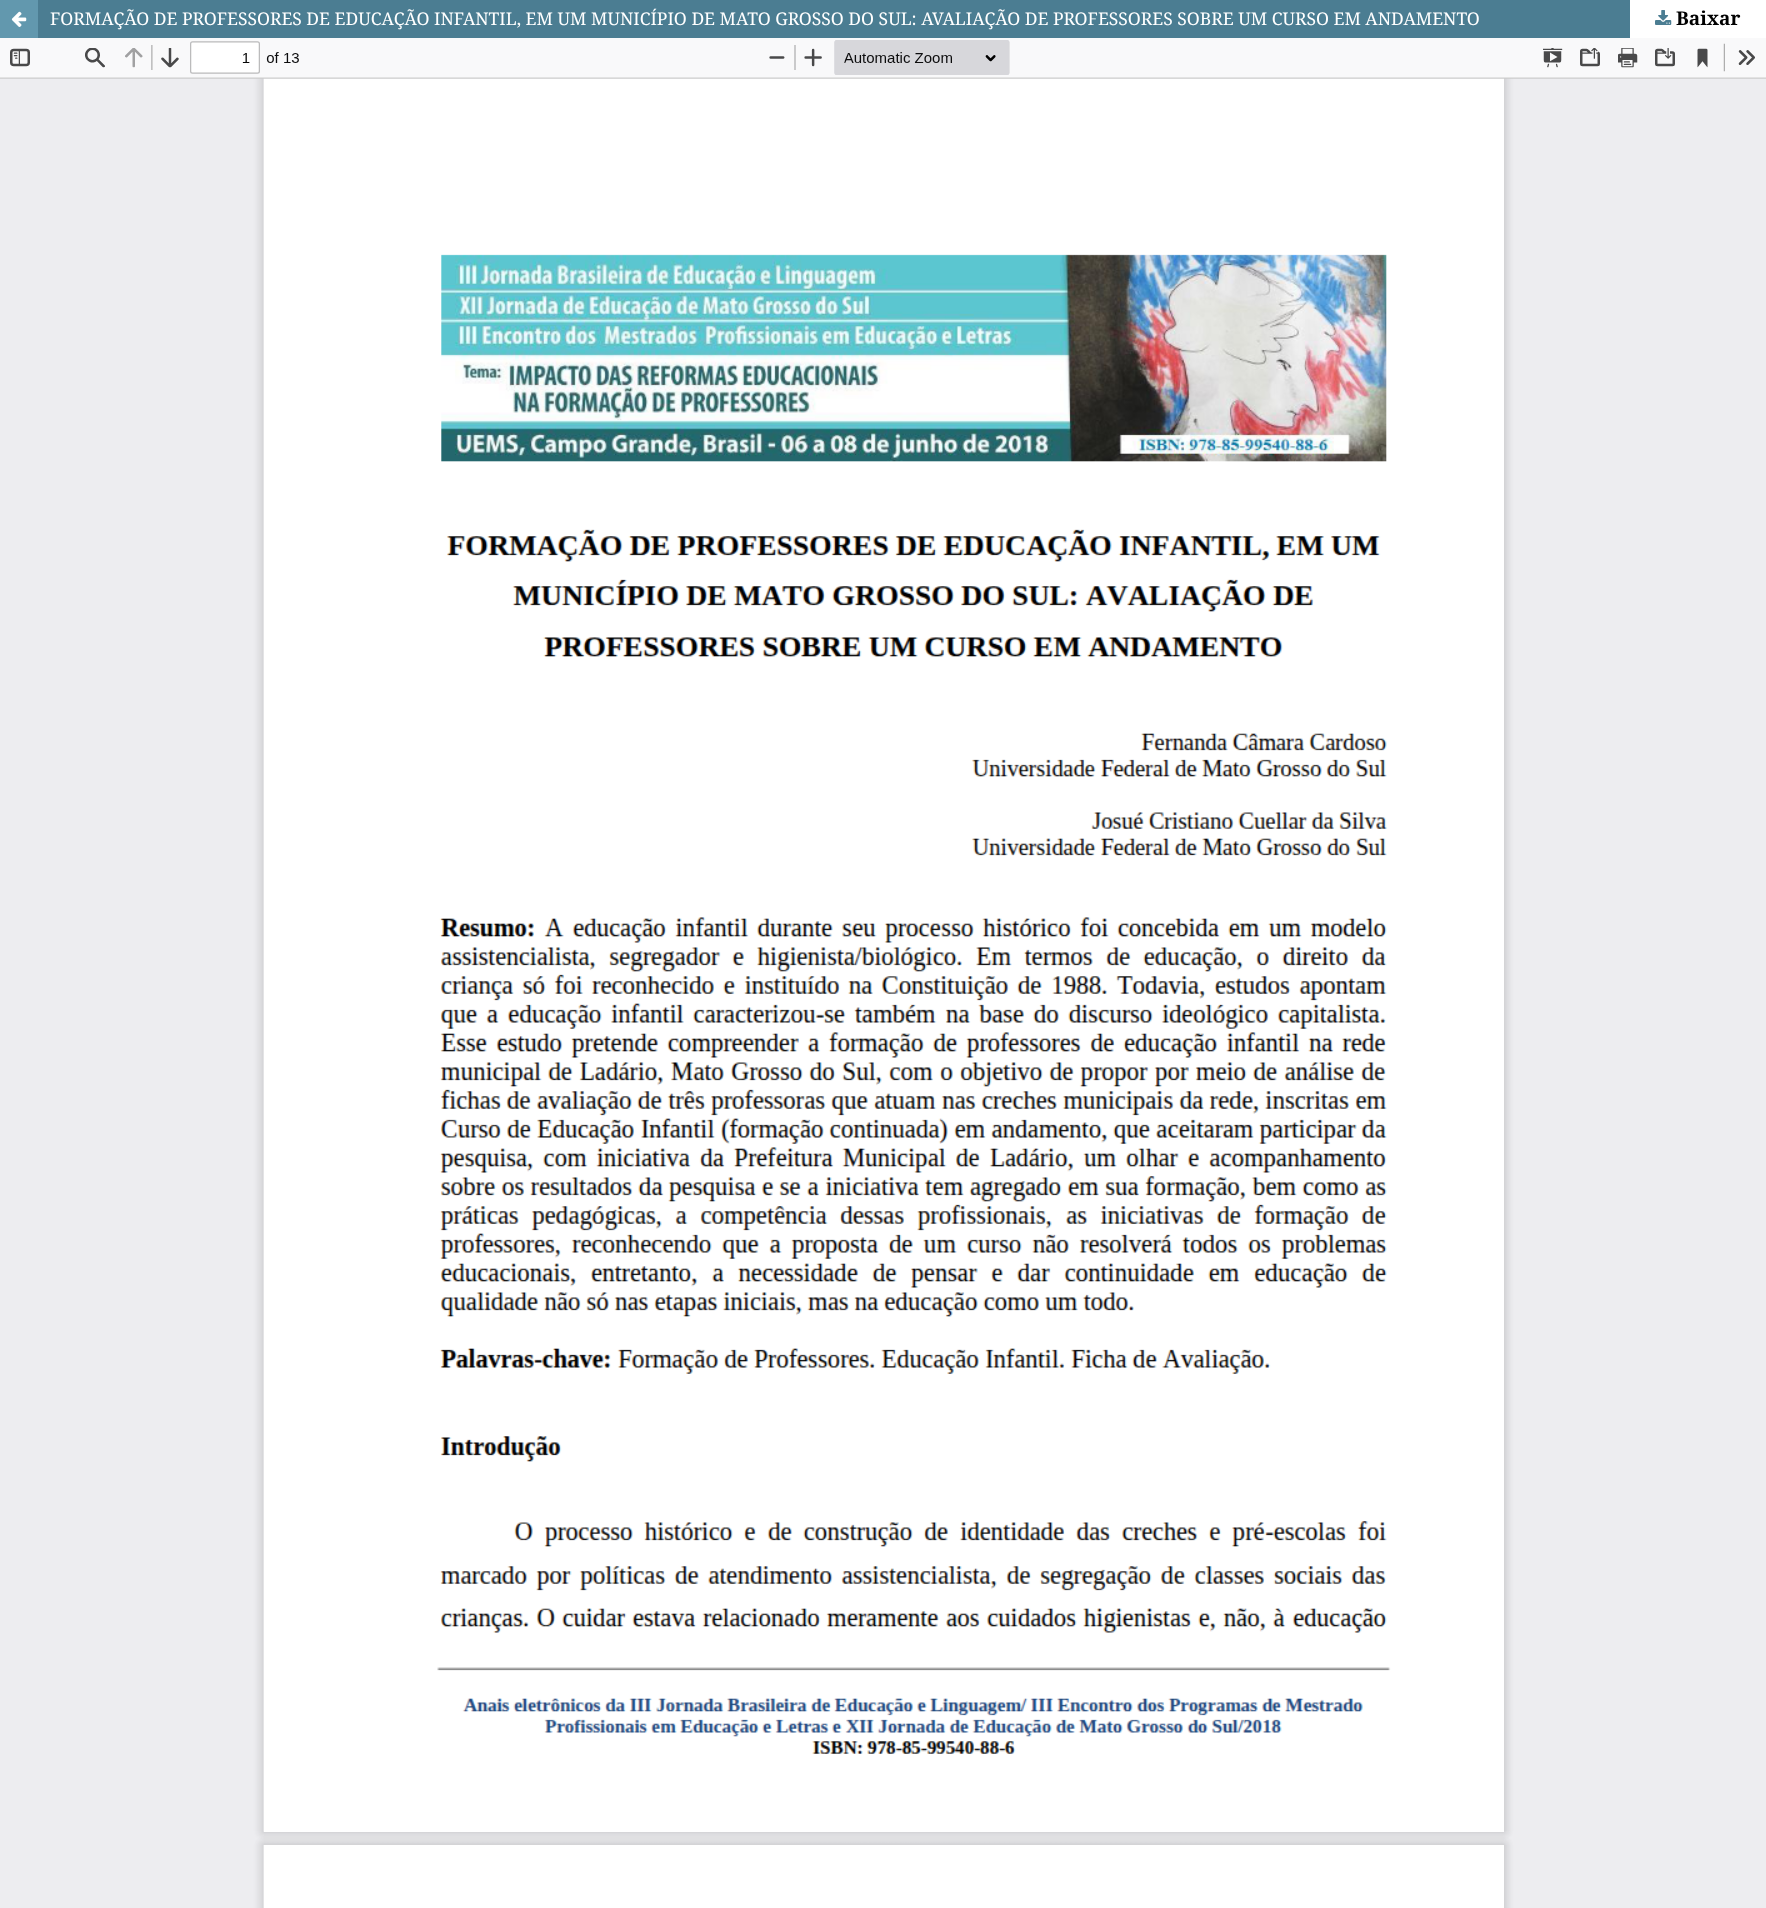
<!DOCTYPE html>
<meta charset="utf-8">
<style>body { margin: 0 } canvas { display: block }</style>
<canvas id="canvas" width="1766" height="1908"></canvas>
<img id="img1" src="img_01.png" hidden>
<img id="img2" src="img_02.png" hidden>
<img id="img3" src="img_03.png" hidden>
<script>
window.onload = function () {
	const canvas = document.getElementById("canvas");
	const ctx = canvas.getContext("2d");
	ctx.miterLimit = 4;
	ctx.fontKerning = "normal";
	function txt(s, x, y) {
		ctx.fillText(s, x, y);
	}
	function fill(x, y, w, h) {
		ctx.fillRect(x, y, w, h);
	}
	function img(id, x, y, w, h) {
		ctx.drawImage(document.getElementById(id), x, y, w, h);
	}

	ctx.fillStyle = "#FFFFFF";
	fill(0, 0, 1766, 1908);
	ctx.fillStyle = "#4B7D92";
	fill(38, 0, 1592, 38);
	ctx.fillStyle = "#6298AE";
	fill(0, 0, 38, 38);
	img("img1", 11, 11, 16, 16);
	img("img2", 1655, 10, 17, 15);
	img("img3", 0, 38, 1766, 1870);
	ctx.font = "17.5px Noto Serif";
	ctx.fillStyle = "#FFFFFF";
	txt("FORMAÇÃO DE PROFESSORES DE EDUCAÇÃO INFANTIL, EM UM MUNICÍPIO DE MATO GROSSO DO SUL: AVALIAÇÃO DE PROFESSORES SOBRE UM CURSO EM ANDAMENTO", 50, 25);
	ctx.font = "bold 19px Noto Serif";
	ctx.fillStyle = "#000000";
	txt("Baixar", 1676, 25);
};
</script>
